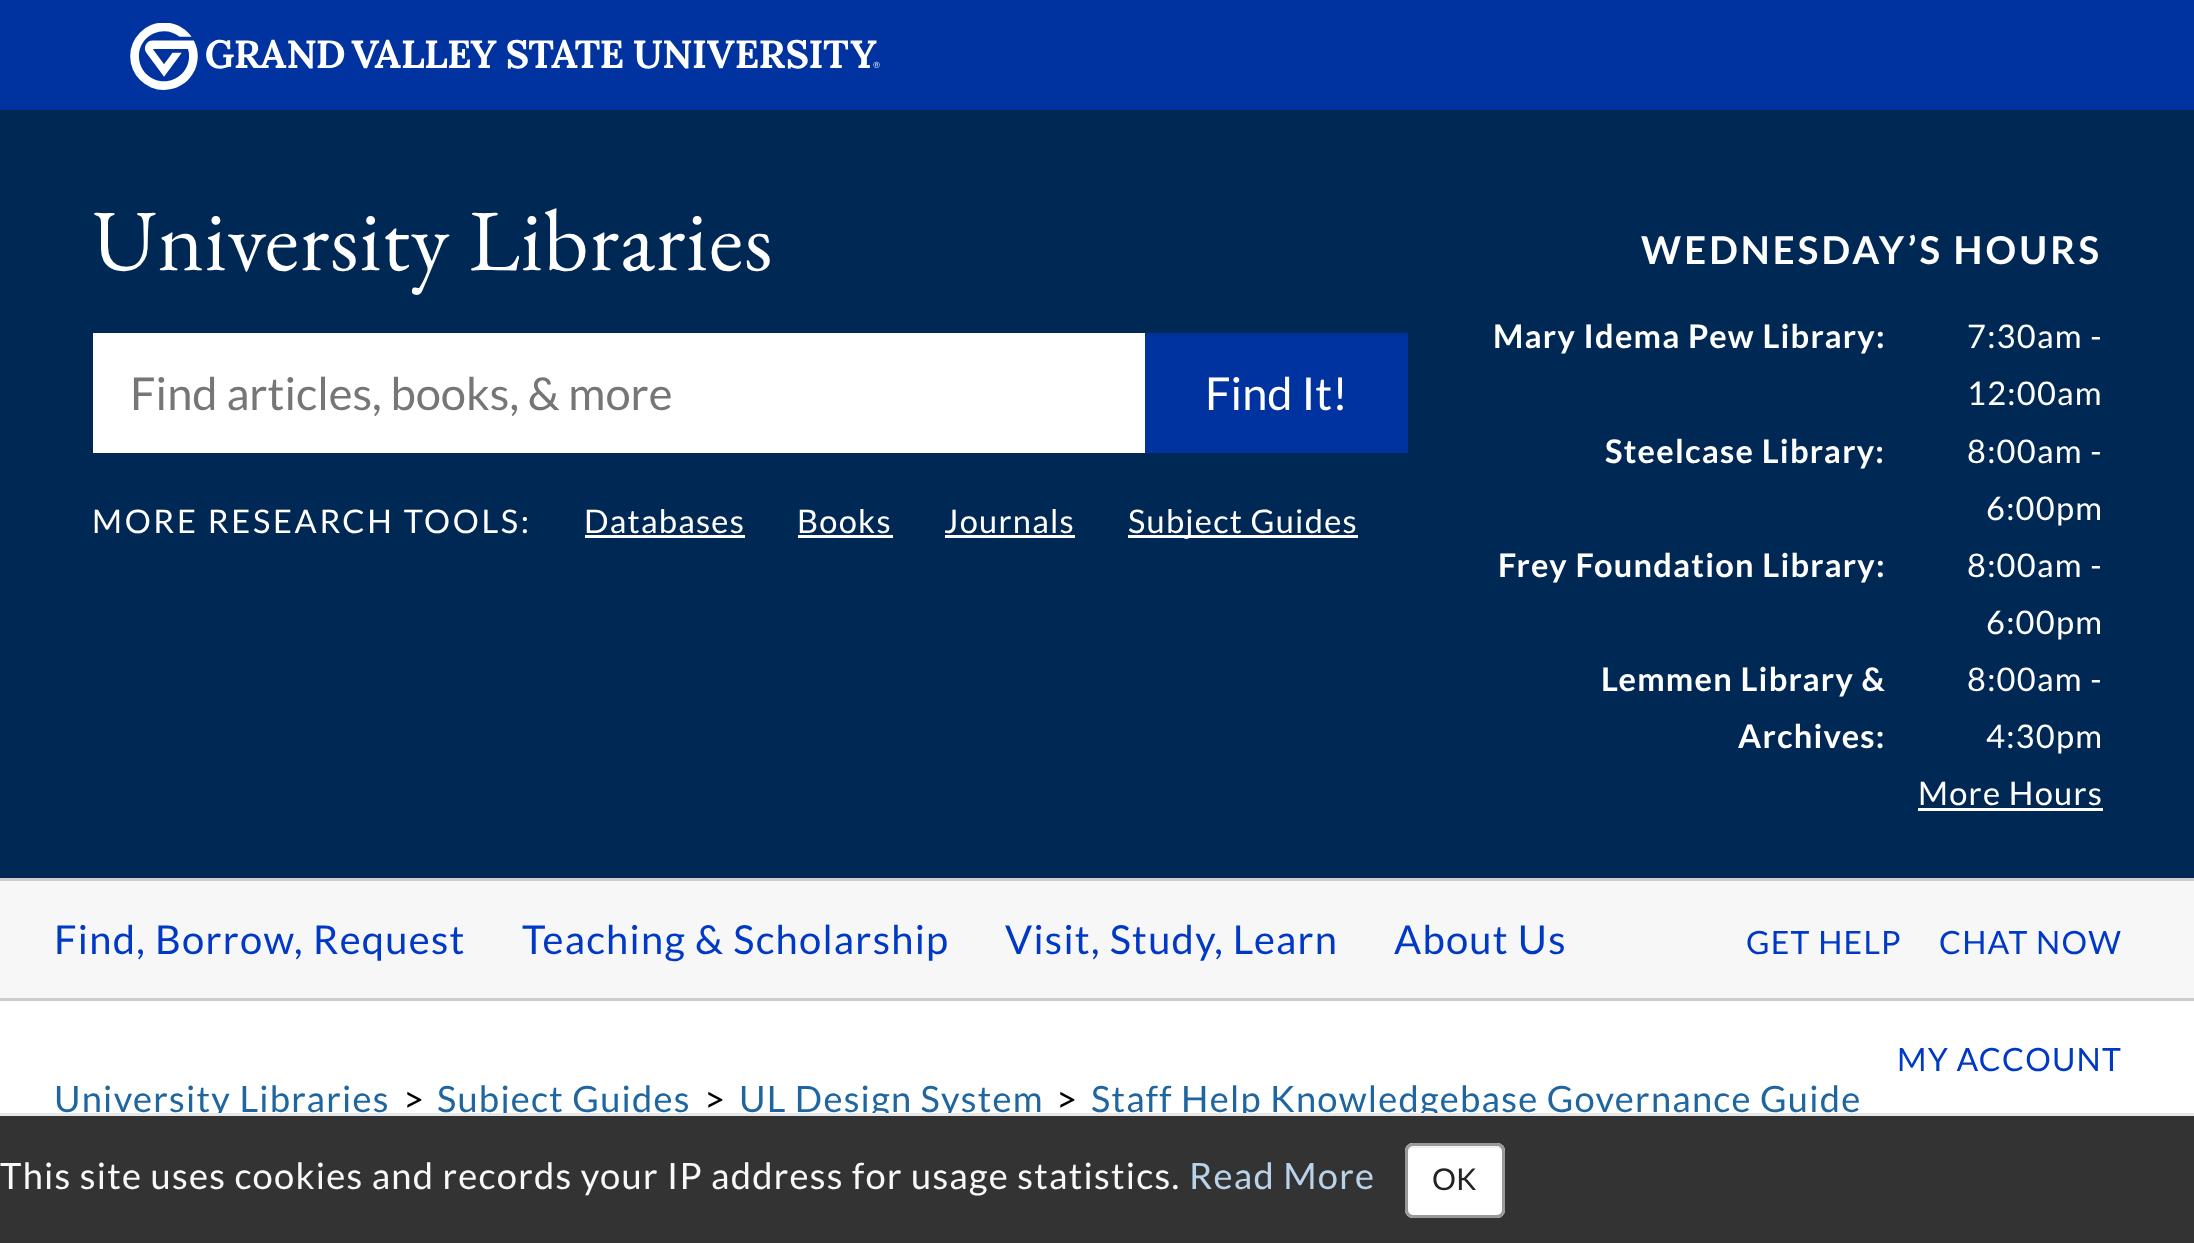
<!DOCTYPE html>
<meta charset="utf-8">
<style>body { margin: 0 } canvas { display: block }</style>
<canvas id="canvas" width="2194" height="1243"></canvas>
<img id="img1" src="img_01.png" hidden>
<script>
window.onload = function () {
	const canvas = document.getElementById("canvas");
	const ctx = canvas.getContext("2d");
	ctx.miterLimit = 4;
	ctx.fontKerning = "normal";
	function txt(s, x, y) {
		ctx.fillText(s, x, y);
	}
	function fill(x, y, w, h) {
		ctx.fillRect(x, y, w, h);
	}
	function round(x, y, w, h, r) {
		ctx.beginPath();
		ctx.roundRect(x, y, w, h, r);
		ctx.fill();
	}
	function img(id, x, y, w, h) {
		ctx.drawImage(document.getElementById(id), x, y, w, h);
	}

	ctx.fillStyle = "#FFFFFF";
	fill(0, 0, 2194, 1243);
	ctx.fillStyle = "#0032A0";
	fill(0, 0, 2194, 110);
	img("img1", 130, 23, 750, 67);
	ctx.fillStyle = "#002855";
	fill(0, 110, 2194, 768);
	ctx.fillStyle = "#FFFFFF";
	fill(93, 333, 1052, 120);
	ctx.fillStyle = "#0032A0";
	fill(1145, 336, 263, 117);
	ctx.fillStyle = "#003098";
	fill(1145, 333, 263, 3);
	ctx.fillStyle = "#FFFFFF";
	fill(585, 535, 160, 3);
	fill(798, 535, 95, 3);
	fill(945, 535, 130, 3);
	fill(1128, 535, 230, 3);
	fill(1918, 808, 185, 3);
	ctx.fillStyle = "#F7F7F7";
	fill(0, 881, 2194, 117);
	ctx.fillStyle = "#CCCCCC";
	fill(0, 878, 2194, 3);
	fill(0, 998, 2194, 3);
	ctx.letterSpacing = "1.1px";
	ctx.font = "87.5px EB Garamond";
	ctx.fillStyle = "#FFFFFF";
	txt("University Libraries", 92, 270);
	ctx.letterSpacing = "0px";
	ctx.font = "45.25px Lato";
	ctx.fillStyle = "#767676";
	txt("Find articles, books, & more", 130, 410);
	ctx.fillStyle = "#FFFFFF";
	txt("Find It!", 1205, 410);
	ctx.letterSpacing = "2.7px";
	ctx.font = "32.6px Lato";
	txt("MORE RESEARCH TOOLS:", 92, 533);
	ctx.letterSpacing = "1.25px";
	txt("Databases", 584, 533);
	txt("Books", 797, 533);
	txt("Journals", 944, 533);
	txt("Subject Guides", 1128, 533);
	ctx.letterSpacing = "3.1px";
	ctx.font = "bold 38.25px Lato";
	txt("WEDNESDAY’S HOURS", 1641, 264);
	ctx.letterSpacing = "1.25px";
	ctx.font = "bold 32.6px Lato";
	txt("Mary Idema Pew Library:", 1493, 348);
	ctx.font = "32.6px Lato";
	txt("7:30am -", 1967, 348);
	txt("12:00am", 1967, 405);
	ctx.font = "bold 32.6px Lato";
	txt("Steelcase Library:", 1605, 463);
	ctx.font = "32.6px Lato";
	txt("8:00am -", 1967, 463);
	txt("6:00pm", 1986, 520);
	ctx.font = "bold 32.6px Lato";
	txt("Frey Foundation Library:", 1498, 577);
	ctx.font = "32.6px Lato";
	txt("8:00am -", 1967, 577);
	txt("6:00pm", 1986, 634);
	ctx.font = "bold 32.6px Lato";
	txt("Lemmen Library &", 1601, 691);
	txt("Archives:", 1738, 748);
	ctx.font = "32.6px Lato";
	txt("8:00am -", 1967, 691);
	txt("4:30pm", 1986, 748);
	txt("More Hours", 1918, 805);
	ctx.font = "39.9px Lato";
	ctx.fillStyle = "#0039C5";
	txt("Find, Borrow, Request", 54, 954);
	txt("Teaching & Scholarship", 522, 954);
	txt("Visit, Study, Learn", 1005, 954);
	txt("About Us", 1394, 954);
	ctx.font = "32px Lato";
	txt("GET HELP", 1746, 954);
	txt("CHAT NOW", 1939, 954);
	txt("MY ACCOUNT", 1897, 1071);
	ctx.font = "36.25px Lato";
	ctx.fillStyle = "#1F65A0";
	txt("University Libraries", 54, 1112);
	ctx.fillStyle = "#000000";
	txt(">", 403, 1112);
	ctx.fillStyle = "#1F65A0";
	txt("Subject Guides", 437, 1112);
	ctx.fillStyle = "#000000";
	txt(">", 704, 1112);
	ctx.fillStyle = "#1F65A0";
	txt("UL Design System", 739, 1112);
	ctx.fillStyle = "#000000";
	txt(">", 1056, 1112);
	ctx.fillStyle = "#1F65A0";
	txt("Staff Help Knowledgebase Governance Guide", 1091, 1112);
	ctx.fillStyle = "#333333";
	fill(0, 1116, 2194, 127);
	ctx.fillStyle = "#E7E7E7";
	fill(0, 1113, 2194, 3);
	ctx.fillStyle = "#F8F8F8";
	txt("This site uses cookies and records your IP address for usage statistics.", 0, 1189);
	ctx.fillStyle = "#B9D3EB";
	txt("Read More", 1189, 1189);
	ctx.fillStyle = "#FFFFFF";
	round(1405, 1143, 100, 75, 8);
	ctx.fillStyle = "#F2F2F2";
	ctx.beginPath();
	ctx.moveTo(1412, 1148);
	ctx.lineTo(1498, 1148);
	ctx.bezierCurveTo(1504, 1148, 1502, 1160, 1502, 1162);
	ctx.lineTo(1502, 1213);
	ctx.bezierCurveTo(1503, 1212, 1503, 1211, 1503, 1210);
	ctx.lineTo(1503, 1150);
	ctx.bezierCurveTo(1503, 1147, 1501, 1145, 1498, 1145);
	ctx.lineTo(1413, 1145);
	ctx.bezierCurveTo(1410, 1145, 1408, 1147, 1408, 1150);
	ctx.lineTo(1408, 1152);
	ctx.bezierCurveTo(1408, 1150, 1410, 1148, 1412, 1148);
	ctx.closePath();
	ctx.fill();
	ctx.beginPath();
	ctx.roundRect(1406.5, 1144.5, 97, 72, 6.5);
	ctx.strokeStyle = "#999999";
	ctx.lineWidth = 3;
	ctx.stroke();
	ctx.letterSpacing = "0px";
	ctx.font = "30px Lato";
	ctx.fillStyle = "#232323";
	txt("OK", 1432, 1190);
};
</script>
